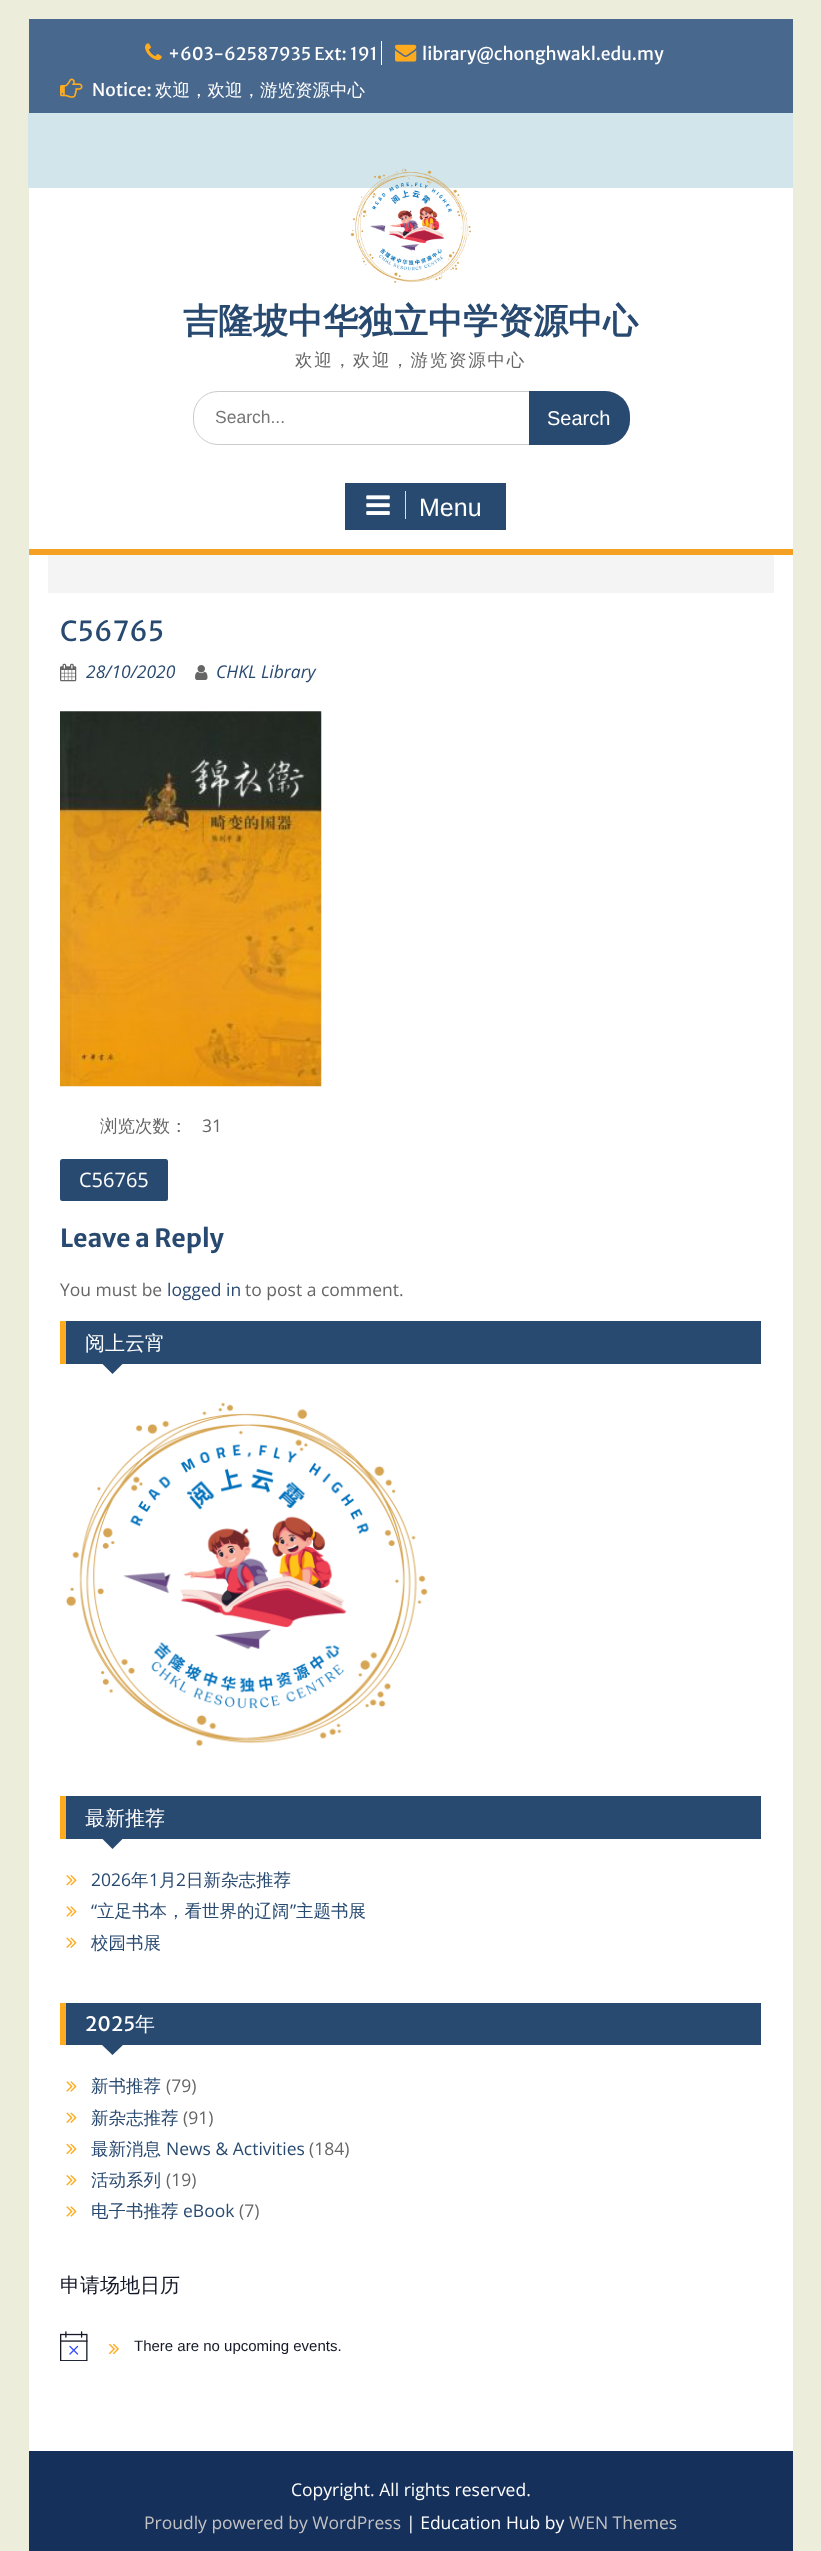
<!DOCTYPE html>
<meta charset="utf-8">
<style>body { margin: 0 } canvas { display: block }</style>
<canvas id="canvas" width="821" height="2551"></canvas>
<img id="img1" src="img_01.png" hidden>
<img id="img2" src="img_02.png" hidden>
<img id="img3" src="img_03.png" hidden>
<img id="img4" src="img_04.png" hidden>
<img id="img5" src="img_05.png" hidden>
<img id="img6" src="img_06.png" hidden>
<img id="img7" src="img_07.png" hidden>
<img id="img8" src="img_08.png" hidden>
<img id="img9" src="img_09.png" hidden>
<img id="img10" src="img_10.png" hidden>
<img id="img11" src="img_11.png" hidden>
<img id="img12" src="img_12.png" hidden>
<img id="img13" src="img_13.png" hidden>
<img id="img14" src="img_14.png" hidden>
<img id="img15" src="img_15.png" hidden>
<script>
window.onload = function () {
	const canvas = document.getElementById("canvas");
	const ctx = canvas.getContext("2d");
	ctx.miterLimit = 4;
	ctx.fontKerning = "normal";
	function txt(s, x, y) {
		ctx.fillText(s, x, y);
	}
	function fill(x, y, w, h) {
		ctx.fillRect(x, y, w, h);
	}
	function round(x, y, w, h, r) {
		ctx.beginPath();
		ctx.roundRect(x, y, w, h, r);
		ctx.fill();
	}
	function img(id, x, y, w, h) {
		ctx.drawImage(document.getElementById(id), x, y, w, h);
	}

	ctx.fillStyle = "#EDEDDC";
	fill(0, 0, 821, 2551);
	ctx.fillStyle = "#FFFFFF";
	fill(29, 188, 764, 2263);
	ctx.fillStyle = "#49688E";
	fill(29, 19, 764, 94);
	img("img1", 145, 43, 17, 17);
	ctx.fillStyle = "#FFFFFF";
	fill(381, 41, 1, 24);
	img("img2", 395, 44, 22, 18);
	img("img3", 60, 78, 23, 20);
	ctx.fillStyle = "#D1E5EA";
	fill(28, 113, 765, 75);
	img("img4", 350, 168, 121, 115);
	ctx.beginPath();
	ctx.roundRect(193.5, 391.5, 436, 53, 24.5);
	ctx.strokeStyle = "#CCCCCC";
	ctx.stroke();
	ctx.fillStyle = "#294A70";
	ctx.beginPath();
	ctx.roundRect(529, 391, 101, 54, [0, 25, 25, 0]);
	ctx.fill();
	ctx.fillStyle = "#F4A024";
	fill(29, 549, 764, 6);
	ctx.fillStyle = "#294A70";
	fill(345, 483, 161, 47);
	ctx.fillStyle = "#DDDDDD";
	fill(405, 491, 1, 28);
	img("img5", 366, 495, 24, 20);
	ctx.fillStyle = "#F4F4F4";
	fill(48, 555, 726, 38);
	img("img6", 60, 663, 17, 19);
	img("img7", 195, 665, 13, 15);
	img("img8", 60, 711, 262, 376);
	ctx.fillStyle = "#294A70";
	round(60, 1159, 108, 42, 2.5);
	fill(66, 1321, 695, 43);
	ctx.fillStyle = "#FFAB1F";
	fill(60, 1321, 6, 43);
	ctx.fillStyle = "#294A70";
	ctx.beginPath();
	ctx.moveTo(101, 1362.5);
	ctx.lineTo(124, 1362.5);
	ctx.lineTo(112.5, 1374);
	ctx.closePath();
	ctx.fill();
	img("img9", 65, 1402, 363, 345);
	fill(66, 1796, 695, 43);
	ctx.fillStyle = "#FFAB1F";
	fill(60, 1796, 6, 43);
	ctx.fillStyle = "#294A70";
	ctx.beginPath();
	ctx.moveTo(101, 1837.5);
	ctx.lineTo(124, 1837.5);
	ctx.lineTo(112.5, 1849);
	ctx.closePath();
	ctx.fill();
	img("img10", 66, 1875, 11, 11);
	img("img11", 66, 1906, 11, 11);
	img("img12", 66, 1937, 11, 11);
	fill(66, 2003, 695, 42);
	ctx.fillStyle = "#FFAB1F";
	fill(60, 2003, 6, 42);
	ctx.fillStyle = "#294A70";
	ctx.beginPath();
	ctx.moveTo(101, 2044);
	ctx.lineTo(124, 2044);
	ctx.lineTo(112.5, 2055);
	ctx.closePath();
	ctx.fill();
	img("img11", 66, 2081, 11, 11);
	img("img12", 66, 2112, 11, 11);
	img("img13", 66, 2143, 11, 12);
	img("img10", 66, 2175, 11, 11);
	img("img11", 66, 2206, 11, 11);
	img("img14", 60, 2331, 28, 30);
	img("img15", 108, 2343, 11, 12);
	ctx.fillStyle = "#15305B";
	fill(29, 2451, 764, 100);
	ctx.font = "17.5px Merriweather Sans";
	ctx.fillStyle = "#FFFFFF";
	txt("+603-62587935 Ext: 191", 168, 60);
	txt("library@chonghwakl.edu.my", 422, 60);
	txt("Notice:", 92, 96);
	ctx.font = "500 17.5px WenQuanYi Zen Hei";
	txt("欢迎，欢迎，游览资源中心", 155, 96);
	ctx.font = "bold 35px WenQuanYi Zen Hei";
	ctx.fillStyle = "#294A70";
	txt("吉隆坡中华独立中学资源中心", 183, 333);
	ctx.letterSpacing = "1.75px";
	ctx.font = "500 17.5px WenQuanYi Zen Hei";
	ctx.fillStyle = "#666666";
	txt("欢迎，欢迎，游览资源中心", 295, 366);
	ctx.letterSpacing = "0px";
	ctx.font = "17.5px Liberation Sans";
	ctx.fillStyle = "#757575";
	txt("Search...", 215, 423);
	ctx.font = "20px Liberation Sans";
	ctx.fillStyle = "#FFFFFF";
	txt("Search", 547, 425);
	ctx.font = "25px Liberation Sans";
	txt("Menu", 419, 516);
	ctx.font = "27.5px Merriweather Sans";
	ctx.fillStyle = "#294A70";
	txt("C56765", 60, 641);
	ctx.font = "italic 17.5px Open Sans";
	txt("28/10/2020", 86, 678);
	txt("CHKL Library", 216, 678);
	ctx.font = "500 17.5px WenQuanYi Zen Hei";
	ctx.fillStyle = "#666666";
	txt("浏览次数：", 100, 1132);
	ctx.font = "17.5px Open Sans";
	txt("31", 202, 1132);
	ctx.font = "20px Open Sans";
	ctx.fillStyle = "#FFFFFF";
	txt("C56765", 79, 1187);
	ctx.font = "bold 25px Merriweather Sans";
	ctx.fillStyle = "#294A70";
	txt("Leave a Reply", 60, 1247);
	ctx.font = "17.5px Open Sans";
	ctx.fillStyle = "#666666";
	txt("You must be", 60, 1296);
	ctx.fillStyle = "#294A70";
	txt("logged in", 167, 1296);
	ctx.fillStyle = "#666666";
	txt("to post a comment.", 245, 1296);
	ctx.font = "500 20px WenQuanYi Zen Hei";
	ctx.fillStyle = "#FFFFFF";
	txt("阅上云宵", 85, 1350);
	txt("最新推荐", 85, 1825);
	ctx.font = "17.5px Open Sans";
	ctx.fillStyle = "#294A70";
	txt("2026", 91, 1886);
	ctx.font = "500 17.5px WenQuanYi Zen Hei";
	txt("年", 131, 1886);
	ctx.font = "17.5px Open Sans";
	txt("1", 149, 1886);
	ctx.font = "500 17.5px WenQuanYi Zen Hei";
	txt("月", 159, 1886);
	ctx.font = "17.5px Open Sans";
	txt("2", 176, 1886);
	ctx.font = "500 17.5px WenQuanYi Zen Hei";
	txt("日新杂志推荐", 186, 1886);
	ctx.font = "17.5px Open Sans";
	txt("“", 91, 1917);
	ctx.font = "500 17.5px WenQuanYi Zen Hei";
	txt("立足书本，看世界的辽阔", 97, 1917);
	ctx.font = "17.5px Open Sans";
	txt("”", 290, 1917);
	ctx.font = "500 17.5px WenQuanYi Zen Hei";
	txt("主题书展", 296, 1917);
	txt("校园书展", 91, 1949);
	ctx.font = "20px Merriweather Sans";
	ctx.fillStyle = "#FFFFFF";
	txt("2025", 85, 2031);
	ctx.font = "500 20px WenQuanYi Zen Hei";
	txt("年", 135, 2031);
	ctx.font = "500 17.5px WenQuanYi Zen Hei";
	ctx.fillStyle = "#294A70";
	txt("新书推荐", 91, 2092);
	ctx.font = "17.5px Open Sans";
	ctx.fillStyle = "#666666";
	txt("(79)", 166, 2092);
	ctx.font = "500 17.5px WenQuanYi Zen Hei";
	ctx.fillStyle = "#294A70";
	txt("新杂志推荐", 91, 2124);
	ctx.font = "17.5px Open Sans";
	ctx.fillStyle = "#666666";
	txt("(91)", 183, 2124);
	ctx.font = "500 17.5px WenQuanYi Zen Hei";
	ctx.fillStyle = "#294A70";
	txt("最新消息", 91, 2155);
	ctx.font = "17.5px Open Sans";
	txt("News & Activities", 166, 2155);
	ctx.fillStyle = "#666666";
	txt("(184)", 309, 2155);
	ctx.font = "500 17.5px WenQuanYi Zen Hei";
	ctx.fillStyle = "#294A70";
	txt("活动系列", 91, 2186);
	ctx.font = "17.5px Open Sans";
	ctx.fillStyle = "#666666";
	txt("(19)", 166, 2186);
	ctx.font = "500 17.5px WenQuanYi Zen Hei";
	ctx.fillStyle = "#294A70";
	txt("电子书推荐", 91, 2217);
	ctx.font = "17.5px Open Sans";
	txt("eBook", 183, 2217);
	ctx.fillStyle = "#666666";
	txt("(7)", 239, 2217);
	ctx.font = "500 20px WenQuanYi Zen Hei";
	ctx.fillStyle = "#141827";
	txt("申请场地日历", 60, 2292);
	ctx.font = "15px Liberation Sans";
	txt("There are no upcoming events.", 134, 2351);
	ctx.font = "17.5px Open Sans";
	ctx.fillStyle = "#FFFFFF";
	txt("Copyright. All rights reserved.", 291, 2496);
	ctx.fillStyle = "#C2C2C2";
	txt("Proudly powered by WordPress", 144, 2529);
	ctx.fillStyle = "#FFFFFF";
	txt("| Education Hub by", 406, 2529);
	ctx.fillStyle = "#C2C2C2";
	txt("WEN Themes", 569, 2529);
};
</script>
